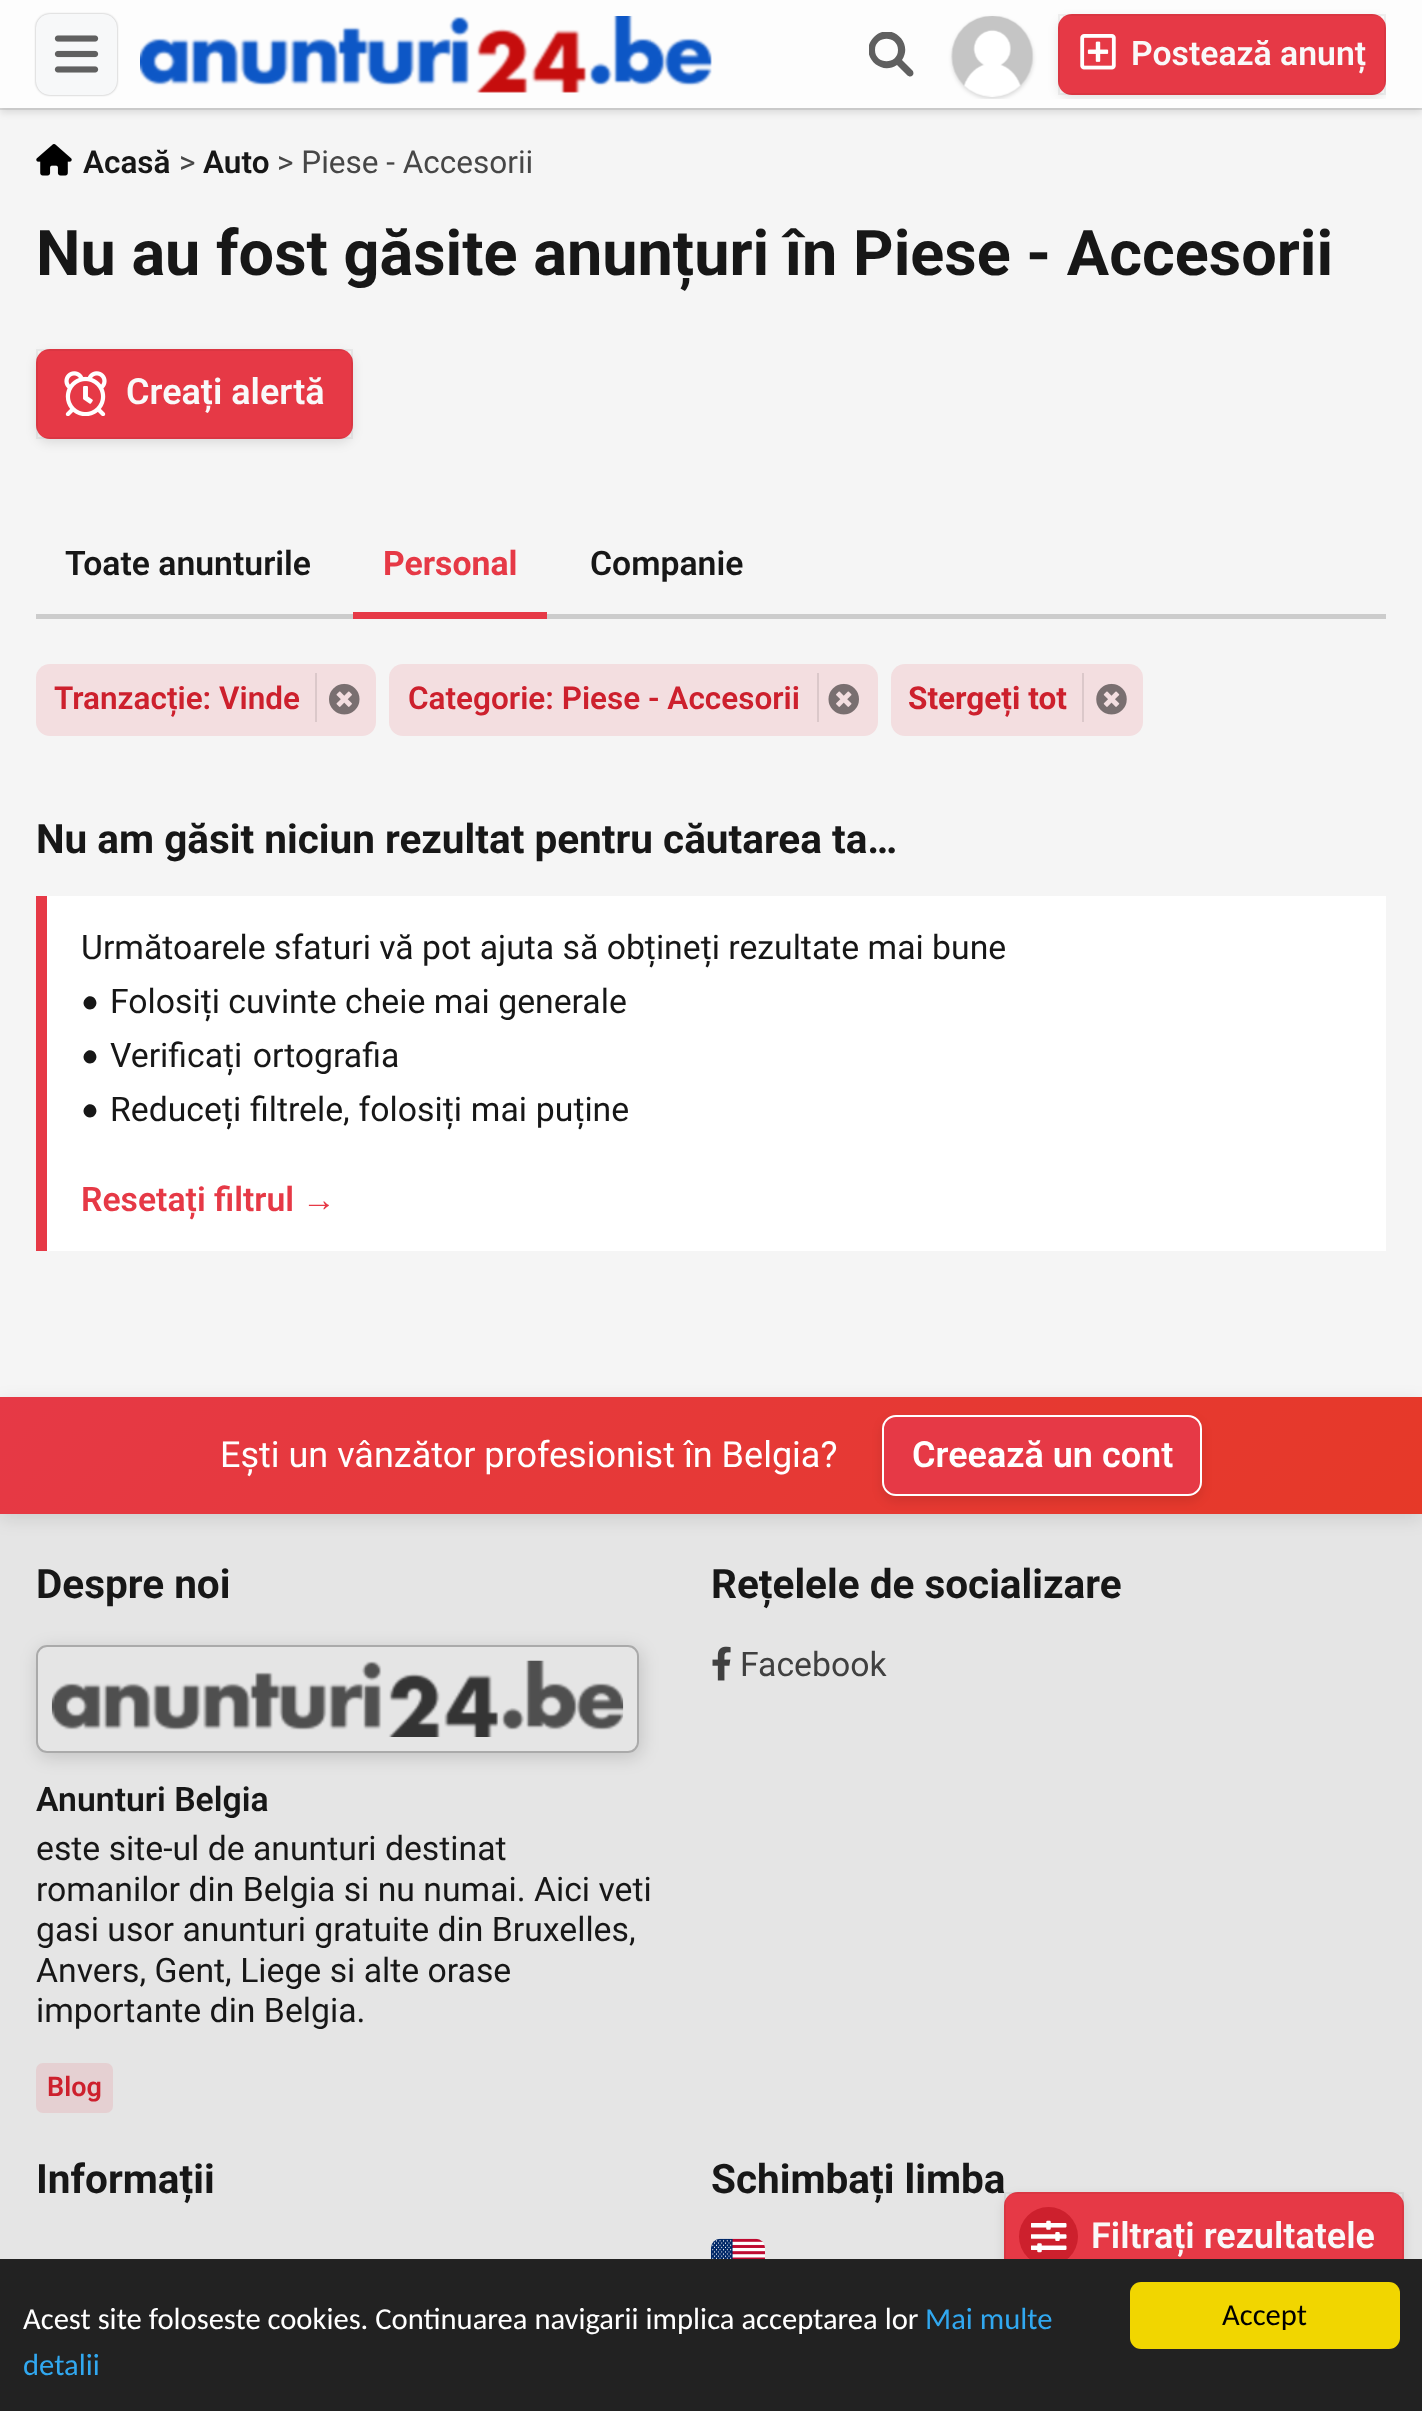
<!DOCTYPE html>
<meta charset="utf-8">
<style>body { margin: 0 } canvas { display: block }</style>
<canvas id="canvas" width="1422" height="2411"></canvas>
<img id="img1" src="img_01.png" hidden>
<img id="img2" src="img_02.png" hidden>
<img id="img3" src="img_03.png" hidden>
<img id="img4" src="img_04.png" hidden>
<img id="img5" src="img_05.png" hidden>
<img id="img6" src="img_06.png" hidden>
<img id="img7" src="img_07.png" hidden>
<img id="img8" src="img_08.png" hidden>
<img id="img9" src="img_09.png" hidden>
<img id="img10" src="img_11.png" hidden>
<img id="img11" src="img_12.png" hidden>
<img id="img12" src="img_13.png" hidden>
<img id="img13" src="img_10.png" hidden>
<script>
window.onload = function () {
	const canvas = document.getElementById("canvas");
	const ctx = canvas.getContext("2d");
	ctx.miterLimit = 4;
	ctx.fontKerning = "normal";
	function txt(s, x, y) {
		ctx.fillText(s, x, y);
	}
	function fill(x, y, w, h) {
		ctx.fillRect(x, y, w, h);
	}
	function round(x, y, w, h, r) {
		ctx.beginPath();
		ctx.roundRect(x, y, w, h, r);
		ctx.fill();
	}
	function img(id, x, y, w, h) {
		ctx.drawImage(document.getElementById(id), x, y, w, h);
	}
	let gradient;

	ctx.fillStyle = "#F5F5F5";
	fill(0, 0, 1422, 2411);
	ctx.fillStyle = "#DDDDDD";
	fill(0, 108, 1422, 2);
	ctx.fillStyle = "rgba(0, 0, 0, 0.1)";
	ctx.filter = "blur(3.5px)";
	ctx.beginPath();
	ctx.rect(0, 5, 1422, 108);
	ctx.fill();
	ctx.filter = "none";
	ctx.fillStyle = "#FDFDFD";
	fill(0, 0, 1422, 108);
	ctx.fillStyle = "rgba(0, 0, 0, 0.3)";
	ctx.filter = "blur(1px)";
	ctx.beginPath();
	ctx.roundRect(36, 14, 81, 81, 14);
	ctx.fill();
	ctx.filter = "none";
	ctx.fillStyle = "#F7F8F9";
	round(36, 14, 81, 81, 14);
	img("img1", 54, 35, 45, 38);
	img("img2", 140, 16, 572, 77);
	ctx.save();
	ctx.beginPath();
	ctx.rect(869, 32, 45, 45);
	ctx.clip();
	ctx.fillStyle = "#606060";
	ctx.beginPath();
	ctx.moveTo(912, 70);
	ctx.lineTo(902, 60);
	ctx.bezierCurveTo(914, 42, 890, 21, 874, 37);
	ctx.bezierCurveTo(858, 53, 879, 77, 897, 65);
	ctx.lineTo(907, 75);
	ctx.bezierCurveTo(911, 79, 916, 74, 912, 70);
	ctx.closePath();
	ctx.moveTo(875, 50);
	ctx.bezierCurveTo(875, 35, 898, 35, 898, 50);
	ctx.bezierCurveTo(898, 65, 875, 65, 875, 50);
	ctx.closePath();
	ctx.fill();
	ctx.restore();
	ctx.save();
	ctx.beginPath();
	ctx.rect(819, 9, 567, 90);
	ctx.clip();
	ctx.fillStyle = "rgba(0, 0, 0, 0.15)";
	ctx.filter = "blur(2px)";
	ctx.beginPath();
	ctx.roundRect(952, 18, 81, 81, 40.5);
	ctx.fill();
	ctx.filter = "none";
	ctx.restore();
	img("img3", 951, 16, 82, 81);
	ctx.save();
	ctx.beginPath();
	ctx.rect(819, 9, 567, 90);
	ctx.clip();
	ctx.fillStyle = "rgba(0, 0, 0, 0.1)";
	ctx.filter = "blur(5.5px)";
	ctx.beginPath();
	ctx.roundRect(1058, 18, 328, 81, 14);
	ctx.fill();
	ctx.filter = "none";
	ctx.restore();
	ctx.fillStyle = "#E63946";
	round(1058, 14, 328, 81, 14);
	ctx.strokeStyle = "rgba(0, 0, 0, 0.05)";
	ctx.lineWidth = 2;
	ctx.strokeRect(1059, 15, 326, 79);
	img("img4", 1080, 34, 36, 36);
	img("img5", 36, 144, 36, 32);
	ctx.fillStyle = "rgba(0, 0, 0, 0.1)";
	ctx.filter = "blur(5.5px)";
	ctx.beginPath();
	ctx.roundRect(36, 353, 317, 90, 14);
	ctx.fill();
	ctx.filter = "none";
	ctx.fillStyle = "#E63946";
	round(36, 349, 317, 90, 14);
	ctx.strokeRect(37, 350, 315, 88);
	img("img6", 64, 371, 43, 45);
	ctx.fillStyle = "#CCCCCC";
	fill(36, 614, 1350, 5);
	ctx.fillStyle = "#E63946";
	fill(353, 612, 194, 7);
	ctx.fillStyle = "#F3DEE0";
	round(36, 664, 340, 72, 14);
	ctx.fillStyle = "#DBC8CA";
	fill(315, 673, 2, 49);
	img("img7", 329, 683, 31, 32);
	ctx.fillStyle = "#F3DEE0";
	round(389, 664, 489, 72, 14);
	ctx.fillStyle = "#DBC8CA";
	fill(817, 673, 2, 49);
	img("img8", 828, 683, 31, 32);
	ctx.fillStyle = "#F3DEE0";
	round(891, 664, 252, 72, 14);
	ctx.fillStyle = "#DBC8CA";
	fill(1082, 673, 2, 49);
	img("img9", 1096, 683, 31, 32);
	ctx.fillStyle = "#FFFFFF";
	fill(47, 896, 1339, 355);
	ctx.fillStyle = "#E63946";
	fill(36, 896, 11, 355);
	ctx.fillStyle = "#171717";
	ctx.beginPath();
	ctx.moveTo(85.5, 998.5);
	ctx.bezierCurveTo(91.5, 992, 100.5, 1001.5, 94.5, 1007.5);
	ctx.bezierCurveTo(88.5, 1013.5, 79.5, 1004.5, 85.5, 998.5);
	ctx.closePath();
	ctx.fill();
	ctx.beginPath();
	ctx.moveTo(85.5, 1052.5);
	ctx.bezierCurveTo(91.5, 1046, 100.5, 1055.5, 94.5, 1061.5);
	ctx.bezierCurveTo(88.5, 1067.5, 79.5, 1058.5, 85.5, 1052.5);
	ctx.closePath();
	ctx.fill();
	ctx.beginPath();
	ctx.moveTo(85.5, 1106.5);
	ctx.bezierCurveTo(91.5, 1100, 100.5, 1109.5, 94.5, 1115.5);
	ctx.bezierCurveTo(88.5, 1121.5, 79.5, 1112.5, 85.5, 1106.5);
	ctx.closePath();
	ctx.fill();
	ctx.fillStyle = "#E5E5E5";
	fill(0, 1514, 1422, 745);
	ctx.fillStyle = "rgba(0, 0, 0, 0.1)";
	ctx.filter = "blur(5.5px)";
	ctx.beginPath();
	ctx.roundRect(1004, 2196, 400, 90, 14);
	ctx.fill();
	ctx.filter = "none";
	ctx.filter = "blur(9px)";
	ctx.beginPath();
	ctx.rect(0, 1402, 1422, 117);
	ctx.fill();
	ctx.filter = "none";
	gradient = ctx.createLinearGradient(326, 1071, 1096, 1841);
	gradient.addColorStop(0, "#E63946");
	gradient.addColorStop(1, "#E63928");
	ctx.fillStyle = gradient;
	fill(0, 1397, 1422, 117);
	ctx.fillStyle = "rgba(0, 0, 0, 0.1)";
	ctx.filter = "blur(5.5px)";
	ctx.beginPath();
	ctx.roundRect(882, 1420, 320, 81, 14);
	ctx.fill();
	ctx.filter = "none";
	ctx.fillStyle = "#E63946";
	ctx.beginPath();
	ctx.roundRect(883, 1416, 318, 79, 13);
	ctx.fill();
	ctx.strokeStyle = "#FFFFFF";
	ctx.stroke();
	ctx.save();
	ctx.beginPath();
	ctx.moveTo(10, 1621);
	ctx.lineTo(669, 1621);
	ctx.lineTo(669, 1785);
	ctx.lineTo(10, 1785);
	ctx.closePath();
	ctx.moveTo(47, 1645);
	ctx.lineTo(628, 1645);
	ctx.bezierCurveTo(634, 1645, 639, 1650, 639, 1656);
	ctx.lineTo(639, 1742);
	ctx.bezierCurveTo(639, 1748, 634, 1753, 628, 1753);
	ctx.lineTo(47, 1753);
	ctx.bezierCurveTo(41, 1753, 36, 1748, 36, 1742);
	ctx.lineTo(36, 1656);
	ctx.bezierCurveTo(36, 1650, 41, 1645, 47, 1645);
	ctx.closePath();
	ctx.clip("evenodd");
	ctx.fillStyle = "rgba(0, 0, 0, 0.15)";
	ctx.filter = "blur(9px)";
	ctx.beginPath();
	ctx.roundRect(38, 1649, 603, 108, 11);
	ctx.fill();
	ctx.filter = "none";
	ctx.restore();
	ctx.beginPath();
	ctx.roundRect(37, 1646, 601, 106, 10);
	ctx.strokeStyle = "#AAAAAA";
	ctx.stroke();
	img("img10", 51, 1660, 573, 77);
	ctx.fillStyle = "#E5D0D2";
	round(36, 2063, 77, 50, 7);
	img("img11", 712, 1646, 19, 35);
	img("img12", 711, 2238, 54, 21);
	ctx.font = "600 33.75px Roboto";
	ctx.fillStyle = "#F9F9F9";
	txt("Postează anunț", 1131, 65);
	ctx.font = "600 31.5px Roboto";
	ctx.fillStyle = "#171717";
	txt("Acasă", 83, 173);
	ctx.font = "31.5px Roboto";
	ctx.fillStyle = "#474747";
	txt(">", 179, 173);
	ctx.font = "600 31.5px Roboto";
	ctx.fillStyle = "#171717";
	txt("Auto", 203, 173);
	ctx.font = "31.5px Roboto";
	ctx.fillStyle = "#474747";
	txt("> Piese - Accesorii", 277, 173);
	ctx.font = "bold 63px Roboto";
	ctx.fillStyle = "#171717";
	txt("Nu au fost găsite anunțuri în Piese - Accesorii", 36, 275);
	ctx.font = "600 36px Roboto";
	ctx.fillStyle = "#F9F9F9";
	txt("Creați alertă", 126, 404);
	ctx.font = "600 33.75px Roboto";
	ctx.fillStyle = "#171717";
	txt("Toate anunturile", 65, 575);
	ctx.font = "bold 33.75px Roboto";
	ctx.fillStyle = "#E63946";
	txt("Personal", 383, 575);
	ctx.font = "600 33.75px Roboto";
	ctx.fillStyle = "#171717";
	txt("Companie", 590, 575);
	ctx.font = "600 31.5px Roboto";
	ctx.fillStyle = "#CD202D";
	txt("Tranzacție: Vinde", 54, 709);
	txt("Categorie: Piese - Accesorii", 408, 709);
	ctx.font = "bold 31.5px Roboto";
	txt("Stergeți tot", 908, 709);
	ctx.font = "bold 40.5px Roboto";
	ctx.fillStyle = "#171717";
	txt("Nu am găsit niciun rezultat pentru căutarea ta…", 36, 853);
	ctx.font = "33.75px Roboto";
	txt("Următoarele sfaturi vă pot ajuta să obțineți rezultate mai bune", 81, 959);
	txt("Folosiți cuvinte cheie mai generale", 110, 1013);
	ctx.wordSpacing = "2px";
	txt("Verificați ortografia", 110, 1067);
	ctx.wordSpacing = "0.5px";
	txt("Reduceți filtrele, folosiți mai puține", 110, 1121);
	ctx.wordSpacing = "0px";
	ctx.font = "600 33.75px Roboto";
	ctx.fillStyle = "#E63946";
	txt("Resetați filtrul", 81, 1211);
	ctx.font = "bold 33.75px Liberation Sans";
	txt("→", 302, 1211);
	ctx.font = "36px Roboto";
	ctx.fillStyle = "#FFFFFF";
	txt("Ești un vânzător profesionist în Belgia?", 220, 1467);
	ctx.font = "600 36px Roboto";
	txt("Creează un cont", 912, 1467);
	ctx.font = "bold 40.5px Roboto";
	ctx.fillStyle = "#171717";
	txt("Despre noi", 36, 1598);
	ctx.font = "600 33.75px Roboto";
	txt("Anunturi Belgia", 36, 1811);
	ctx.font = "33.75px Roboto";
	txt("este site-ul de anunturi destinat", 36, 1860);
	txt("romanilor din Belgia si nu numai. Aici veti", 36, 1901);
	txt("gasi usor anunturi gratuite din Bruxelles,", 36, 1941);
	txt("Anvers, Gent, Liege si alte orase", 36, 1982);
	txt("importante din Belgia.", 36, 2022);
	ctx.font = "600 27px Roboto";
	ctx.fillStyle = "#CD202D";
	txt("Blog", 47, 2096);
	ctx.font = "bold 40.5px Roboto";
	ctx.fillStyle = "#171717";
	txt("Rețelele de socializare", 711, 1598);
	ctx.font = "33.75px Roboto";
	ctx.fillStyle = "#404040";
	txt("Facebook", 740, 1676);
	ctx.font = "bold 40.5px Roboto";
	ctx.fillStyle = "#171717";
	txt("Informații", 36, 2193);
	txt("Schimbați limba", 711, 2193);
	ctx.fillStyle = "#E63946";
	round(1004, 2192, 400, 90, 14);
	ctx.strokeStyle = "rgba(0, 0, 0, 0.05)";
	ctx.strokeRect(1005, 2193, 398, 88);
	ctx.fillStyle = "#CD202D";
	ctx.beginPath();
	ctx.arc(1048.5, 2236.5, 29.5, 0, Math.PI * 2);
	ctx.fill();
	img("img13", 1031, 2220, 36, 33);
	ctx.font = "600 36px Roboto";
	ctx.fillStyle = "#F9F9F9";
	txt("Filtrați rezultatele", 1091, 2248);
	ctx.fillStyle = "#222222";
	fill(0, 2259, 1422, 152);
	ctx.font = "30.6px Carlito";
	ctx.fillStyle = "#FFFFFF";
	txt("Acest site foloseste cookies. Continuarea navigarii implica acceptarea lor", 23, 2329);
	ctx.fillStyle = "#31A8F0";
	txt("Mai multe", 925, 2329);
	txt("detalii", 23, 2375);
	ctx.fillStyle = "#F1D600";
	round(1130, 2282, 270, 67, 11);
	ctx.fillStyle = "#000000";
	txt("Accept", 1222, 2325);
};
</script>
